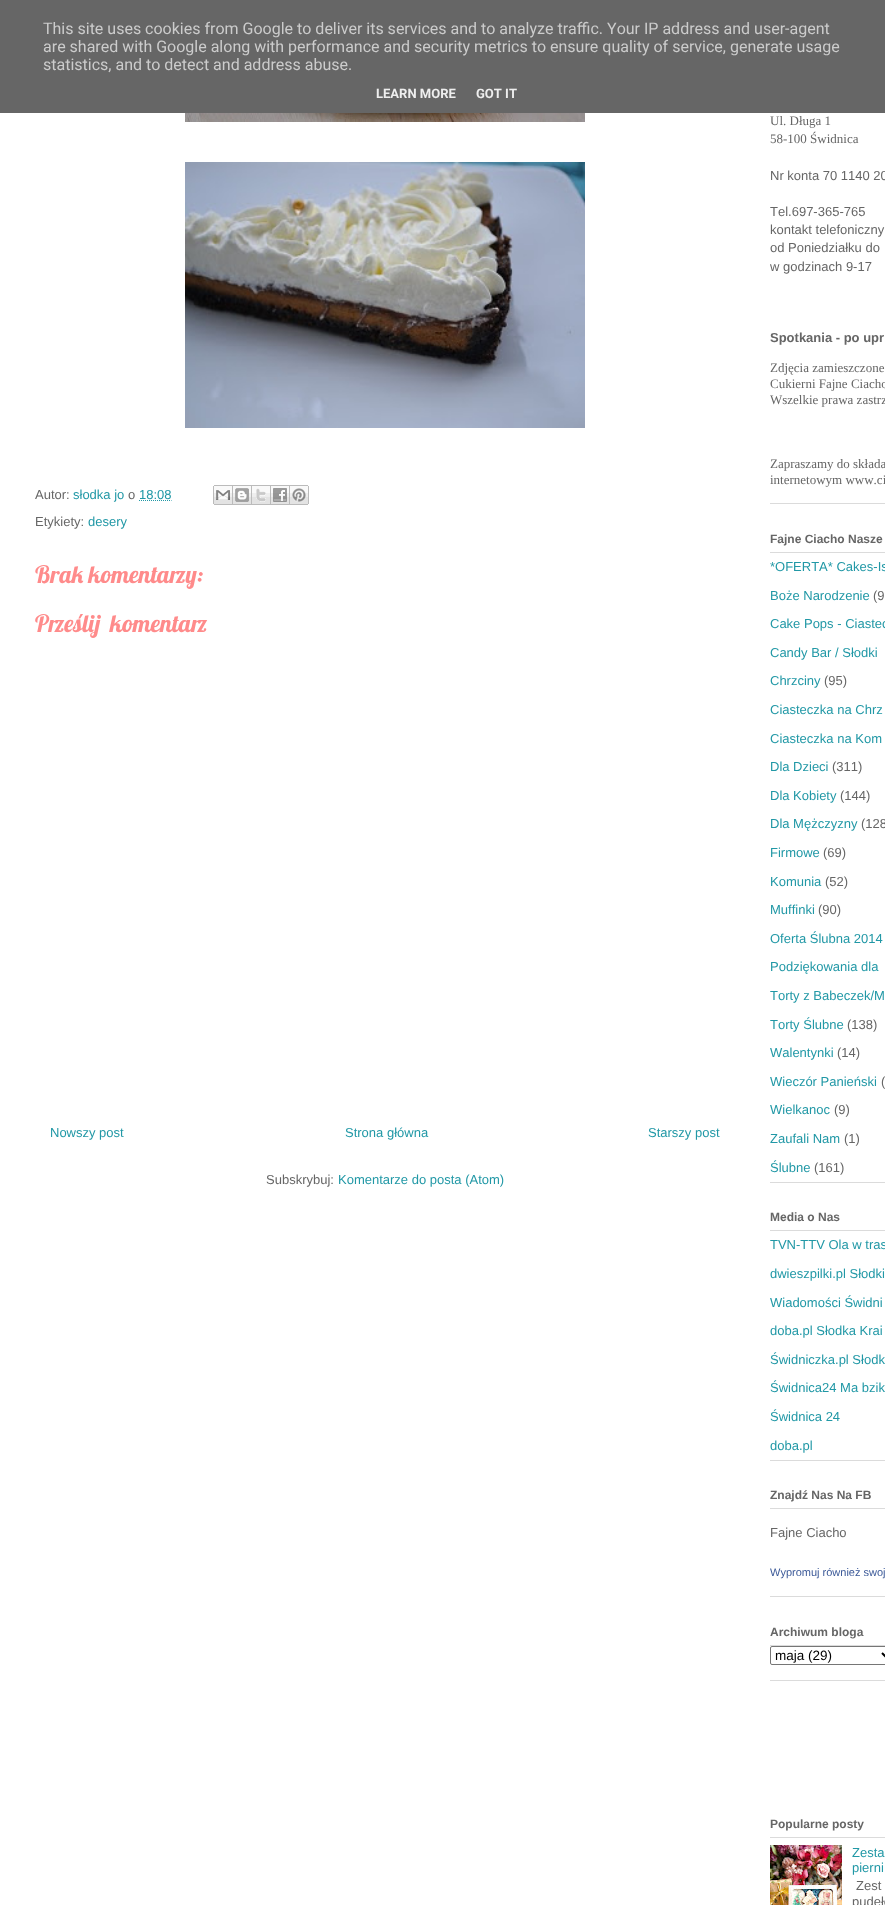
<!DOCTYPE html>
<meta charset="utf-8">
<style>body { margin: 0 } canvas { display: block }</style>
<canvas id="canvas" width="885" height="1905"></canvas>
<img id="img1" src="img_01.png" hidden>
<img id="img2" src="img_02.png" hidden>
<img id="img3" src="img_03.png" hidden>
<img id="img4" src="img_04.png" hidden>
<img id="img5" src="img_05.png" hidden>
<img id="img6" src="img_06.png" hidden>
<img id="img7" src="img_07.png" hidden>
<img id="img8" src="img_08.png" hidden>
<script>
window.onload = function () {
	const canvas = document.getElementById("canvas");
	const ctx = canvas.getContext("2d");
	ctx.miterLimit = 4;
	ctx.fontKerning = "none";
	function txt(s, x, y) {
		ctx.fillText(s, x, y);
	}
	function fill(x, y, w, h) {
		ctx.fillRect(x, y, w, h);
	}
	function img(id, x, y, w, h) {
		ctx.drawImage(document.getElementById(id), x, y, w, h);
	}

	ctx.fillStyle = "#FFFFFF";
	fill(0, 0, 885, 1905);
	ctx.fillStyle = "#666666";
	fill(0, 0, 885, 113);
	img("img1", 185, 113, 400, 9);
	img("img2", 185, 162, 400, 266);
	ctx.beginPath();
	ctx.moveTo(139, 500.5);
	ctx.lineTo(171.5, 500.5);
	ctx.strokeStyle = "#2198A6";
	ctx.setLineDash([1, 1]);
	ctx.stroke();
	img("img3", 213, 485, 20, 20);
	img("img4", 233, 485, 19, 20);
	img("img5", 252, 485, 19, 20);
	img("img6", 271, 485, 19, 20);
	img("img7", 290, 485, 19, 20);
	ctx.fillStyle = "#DBDBDB";
	fill(770, 503, 115, 1);
	fill(770, 1182, 115, 1);
	fill(770, 552, 115, 1);
	fill(770, 1460, 115, 1);
	fill(770, 1230, 115, 1);
	fill(770, 1596, 115, 1);
	fill(770, 1508, 115, 1);
	fill(770, 1680, 115, 1);
	fill(770, 1645, 115, 1);
	ctx.beginPath();
	ctx.roundRect(770.5, 1646.5, 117, 18, 1.5);
	ctx.strokeStyle = "#767676";
	ctx.setLineDash([]);
	ctx.stroke();
	ctx.beginPath();
	ctx.moveTo(882, 1653);
	ctx.lineTo(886, 1657);
	ctx.lineTo(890, 1653);
	ctx.strokeStyle = "#000000";
	ctx.lineWidth = 2;
	ctx.stroke();
	fill(770, 1837, 115, 1);
	img("img8", 770, 1845, 72, 60);
	ctx.font = "16px Roboto";
	ctx.fillStyle = "#CCCCCC";
	txt("This site uses cookies from Google to deliver its services and to analyze traffic. Your IP address and user-agent", 43, 34);
	txt("are shared with Google along with performance and security metrics to ensure quality of service, generate usage", 43, 52);
	txt("statistics, and to detect and address abuse.", 43, 70);
	ctx.font = "bold 13px Roboto";
	ctx.fillStyle = "#EEEEEE";
	txt("LEARN MORE", 376, 98);
	txt("GOT IT", 476, 98);
	ctx.font = "13px Liberation Sans";
	ctx.fillStyle = "#666666";
	txt("Autor:", 35, 499);
	ctx.fillStyle = "#2198A6";
	txt("słodka jo", 73, 499);
	ctx.fillStyle = "#666666";
	txt("o", 128, 499);
	ctx.fillStyle = "#2198A6";
	txt("18:08", 139, 499);
	ctx.fillStyle = "#666666";
	txt("Etykiety:", 35, 526);
	ctx.fillStyle = "#2198A6";
	txt("desery", 88, 526);
	ctx.font = "24px Lobster";
	ctx.fillStyle = "#FF8B8B";
	txt("Brak komentarzy:", 35, 583);
	txt("Prześlij", 35, 632);
	txt("komentarz", 110, 632);
	ctx.font = "13px Liberation Sans";
	ctx.fillStyle = "#2198A6";
	txt("Nowszy post", 50, 1137);
	txt("Strona główna", 345, 1137);
	txt("Starszy post", 648, 1137);
	ctx.fillStyle = "#666666";
	txt("Subskrybuj:", 266, 1184);
	ctx.fillStyle = "#2198A6";
	txt("Komentarze do posta (Atom)", 338, 1184);
	ctx.font = "13px Liberation Serif";
	ctx.fillStyle = "#666666";
	txt("Ul. Długa 1", 770, 125);
	txt("58-100 Świdnica", 770, 143);
	ctx.font = "13px Liberation Sans";
	txt("Nr konta 70 1140 20", 770, 180);
	txt("Tel.697-365-765", 770, 216);
	txt("kontakt telefoniczny", 770, 234);
	txt("od Poniedziałku do", 770, 252);
	txt("w godzinach 9-17", 770, 271);
	ctx.font = "bold 13px Liberation Sans";
	txt("Spotkania - po upr", 770, 342);
	ctx.font = "13px Liberation Serif";
	txt("Zdjęcia zamieszczone", 770, 372);
	txt("Cukierni Fajne Ciacho", 770, 388);
	txt("Wszelkie prawa zastrz", 770, 404);
	txt("Zapraszamy do składa", 770, 468);
	txt("internetowym www.ci", 770, 484);
	ctx.font = "bold 12px Liberation Sans";
	txt("Fajne Ciacho Nasze", 770, 543);
	ctx.font = "13px Liberation Sans";
	ctx.fillStyle = "#2198A6";
	txt("*OFERTA* Cakes-Is", 770, 571);
	txt("Boże Narodzenie", 770, 600);
	ctx.fillStyle = "#666666";
	txt("(9", 873, 600);
	ctx.fillStyle = "#2198A6";
	txt("Cake Pops - Ciastec", 770, 628);
	txt("Candy Bar / Słodki", 770, 657);
	txt("Chrzciny", 770, 685);
	ctx.fillStyle = "#666666";
	txt("(95)", 824, 685);
	ctx.fillStyle = "#2198A6";
	txt("Ciasteczka na Chrz", 770, 714);
	txt("Ciasteczka na Kom", 770, 743);
	txt("Dla Dzieci", 770, 771);
	ctx.fillStyle = "#666666";
	txt("(311)", 832, 771);
	ctx.fillStyle = "#2198A6";
	txt("Dla Kobiety", 770, 800);
	ctx.fillStyle = "#666666";
	txt("(144)", 840, 800);
	ctx.fillStyle = "#2198A6";
	txt("Dla Mężczyzny", 770, 828);
	ctx.fillStyle = "#666666";
	txt("(128", 861, 828);
	ctx.fillStyle = "#2198A6";
	txt("Firmowe", 770, 857);
	ctx.fillStyle = "#666666";
	txt("(69)", 823, 857);
	ctx.fillStyle = "#2198A6";
	txt("Komunia", 770, 886);
	ctx.fillStyle = "#666666";
	txt("(52)", 825, 886);
	ctx.fillStyle = "#2198A6";
	txt("Muffinki", 770, 914);
	ctx.fillStyle = "#666666";
	txt("(90)", 818, 914);
	ctx.fillStyle = "#2198A6";
	txt("Oferta Ślubna 2014", 770, 943);
	txt("Podziękowania dla", 770, 971);
	txt("Torty z Babeczek/M", 770, 1000);
	txt("Torty Ślubne", 770, 1029);
	ctx.fillStyle = "#666666";
	txt("(138)", 847, 1029);
	ctx.fillStyle = "#2198A6";
	txt("Walentynki", 770, 1057);
	ctx.fillStyle = "#666666";
	txt("(14)", 837, 1057);
	ctx.fillStyle = "#2198A6";
	txt("Wieczór Panieński", 770, 1086);
	ctx.fillStyle = "#666666";
	txt("(", 881, 1086);
	ctx.fillStyle = "#2198A6";
	txt("Wielkanoc", 770, 1114);
	ctx.fillStyle = "#666666";
	txt("(9)", 834, 1114);
	ctx.fillStyle = "#2198A6";
	txt("Zaufali Nam", 770, 1143);
	ctx.fillStyle = "#666666";
	txt("(1)", 844, 1143);
	ctx.fillStyle = "#2198A6";
	txt("Ślubne", 770, 1172);
	ctx.fillStyle = "#666666";
	txt("(161)", 814, 1172);
	ctx.font = "bold 12px Liberation Sans";
	txt("Media o Nas", 770, 1221);
	ctx.font = "13px Liberation Sans";
	ctx.fillStyle = "#2198A6";
	txt("TVN-TTV Ola w tras", 770, 1249);
	txt("dwieszpilki.pl Słodki", 770, 1278);
	txt("Wiadomości Świdni", 770, 1307);
	txt("doba.pl Słodka Krai", 770, 1335);
	txt("Świdniczka.pl Słodk", 770, 1364);
	txt("Świdnica24 Ma bzik", 770, 1392);
	txt("Świdnica 24", 770, 1421);
	txt("doba.pl", 770, 1450);
	ctx.font = "bold 12px Liberation Sans";
	ctx.fillStyle = "#666666";
	txt("Znajdź Nas Na FB", 770, 1499);
	ctx.font = "13px Liberation Sans";
	txt("Fajne Ciacho", 770, 1537);
	ctx.font = "11px Liberation Sans";
	ctx.fillStyle = "#3B5998";
	txt("Wypromuj również swoj", 770, 1576);
	ctx.font = "bold 12px Liberation Sans";
	ctx.fillStyle = "#666666";
	txt("Archiwum bloga", 770, 1636);
	ctx.font = "13.5px Liberation Sans";
	ctx.fillStyle = "#000000";
	txt("maja (29)", 775, 1660);
	ctx.font = "bold 12px Liberation Sans";
	ctx.fillStyle = "#666666";
	txt("Popularne posty", 770, 1828);
	ctx.font = "13px Liberation Sans";
	ctx.fillStyle = "#2198A6";
	txt("Zesta", 852, 1857);
	txt("pierni", 852, 1872);
	ctx.fillStyle = "#666666";
	txt("Zest", 856, 1890);
	txt("pudełe", 852, 1906);
};
</script>
